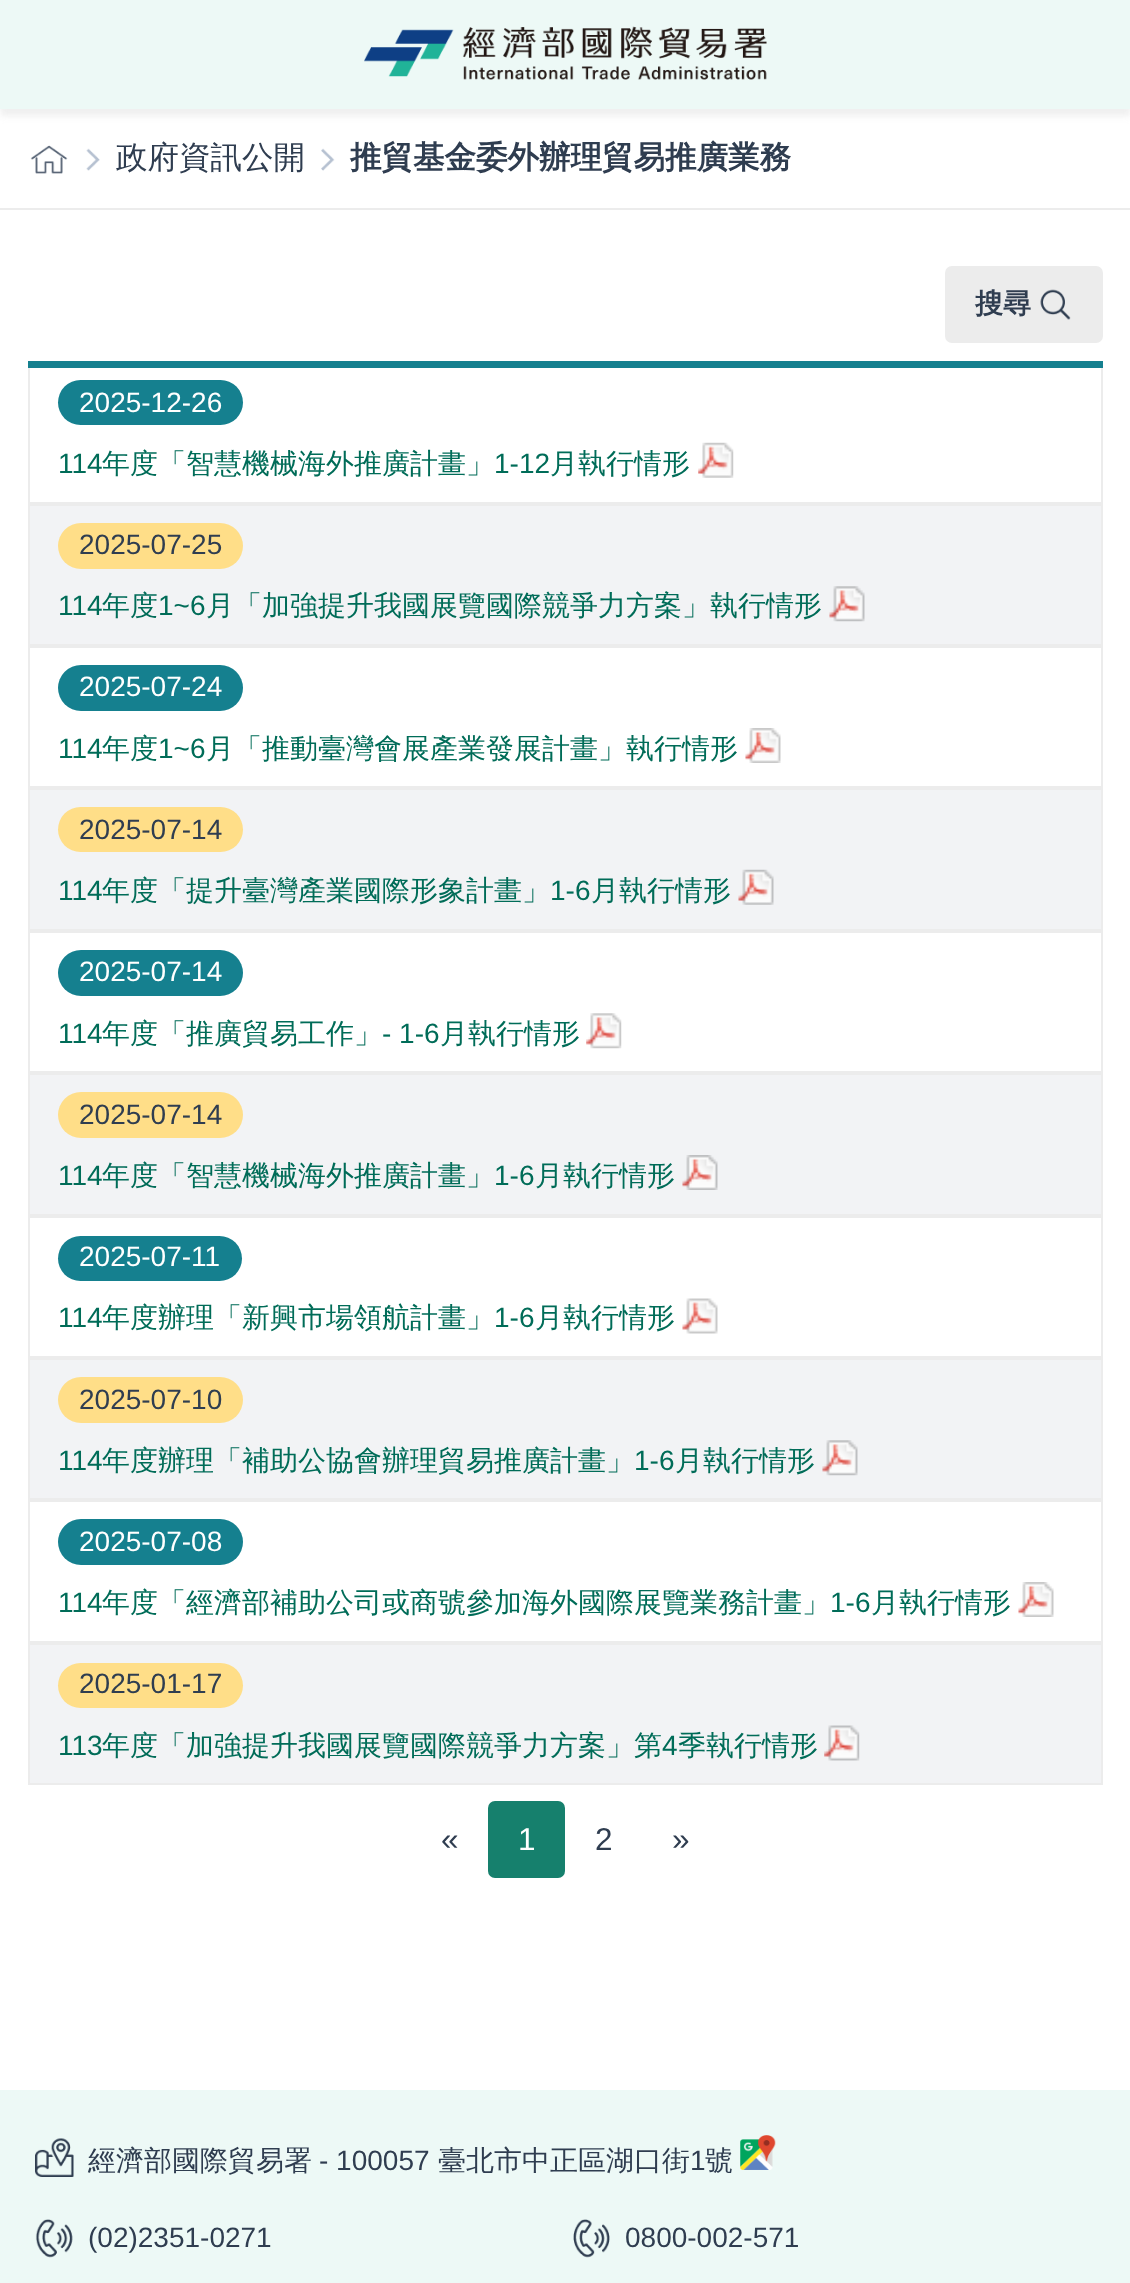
<!DOCTYPE html>
<meta charset="utf-8">
<style>body { margin: 0 } canvas { display: block }</style>
<canvas id="canvas" width="1130" height="2283"></canvas>
<img id="img1" src="img_01.png" hidden>
<img id="img2" src="img_02.png" hidden>
<img id="img3" src="img_03.png" hidden>
<img id="img4" src="img_04.png" hidden>
<img id="img5" src="img_05.png" hidden>
<img id="img6" src="img_06.png" hidden>
<img id="img7" src="img_07.png" hidden>
<img id="img8" src="img_08.png" hidden>
<img id="img9" src="img_09.png" hidden>
<img id="img10" src="img_10.png" hidden>
<img id="img11" src="img_11.png" hidden>
<img id="img12" src="img_12.png" hidden>
<img id="img13" src="img_13.png" hidden>
<img id="img14" src="img_14.png" hidden>
<img id="img15" src="img_15.png" hidden>
<img id="img16" src="img_16.png" hidden>
<img id="img17" src="img_17.png" hidden>
<script>
window.onload = function () {
	const canvas = document.getElementById("canvas");
	const ctx = canvas.getContext("2d");
	ctx.miterLimit = 4;
	ctx.fontKerning = "normal";
	function txt(s, x, y) {
		ctx.fillText(s, x, y);
	}
	function fill(x, y, w, h) {
		ctx.fillRect(x, y, w, h);
	}
	function round(x, y, w, h, r) {
		ctx.beginPath();
		ctx.roundRect(x, y, w, h, r);
		ctx.fill();
	}
	function img(id, x, y, w, h) {
		ctx.drawImage(document.getElementById(id), x, y, w, h);
	}

	ctx.fillStyle = "#FFFFFF";
	fill(0, 0, 1130, 2283);
	ctx.fillStyle = "rgba(193, 193, 193, 0.25)";
	ctx.filter = "blur(3.5px)";
	ctx.beginPath();
	ctx.rect(0, 7, 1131, 109);
	ctx.fill();
	ctx.filter = "none";
	ctx.fillStyle = "#EDF9F6";
	fill(0, 0, 1130, 109);
	img("img1", 364, 26, 403, 54);
	ctx.fillStyle = "#ECECEC";
	fill(0, 208, 1130, 2);
	img("img2", 30, 145, 38, 29);
	img("img3", 86, 148, 14, 23);
	img("img4", 321, 148, 14, 23);
	round(945, 266, 158, 77, 7);
	img("img5", 1040, 289, 31, 31);
	ctx.strokeStyle = "#ECECEC";
	ctx.lineWidth = 2;
	ctx.strokeRect(29, 362, 1073, 141);
	ctx.fillStyle = "#15808F";
	fill(28, 361, 1075, 7);
	round(58, 380, 185, 45, 22.5);
	img("img6", 698, 442, 36, 36);
	ctx.fillStyle = "#F2F3F5";
	ctx.beginPath();
	ctx.rect(29, 505, 1073, 140);
	ctx.fill();
	ctx.stroke();
	ctx.fillStyle = "#FFDE88";
	round(58, 523, 185, 46, 23);
	img("img7", 829, 586, 36, 36);
	ctx.strokeRect(29, 647, 1073, 140);
	ctx.fillStyle = "#15808F";
	round(58, 665, 185, 46, 23);
	img("img8", 745, 728, 36, 35);
	ctx.fillStyle = "#F2F3F5";
	ctx.beginPath();
	ctx.rect(29, 789, 1073, 141);
	ctx.fill();
	ctx.stroke();
	ctx.fillStyle = "#FFDE88";
	round(58, 807, 185, 45, 22.5);
	img("img9", 738, 869, 36, 36);
	ctx.strokeRect(29, 932, 1073, 140);
	ctx.fillStyle = "#15808F";
	round(58, 950, 185, 46, 23);
	img("img10", 586, 1013, 36, 36);
	ctx.fillStyle = "#F2F3F5";
	ctx.beginPath();
	ctx.rect(29, 1074, 1073, 141);
	ctx.fill();
	ctx.stroke();
	ctx.fillStyle = "#FFDE88";
	round(58, 1092, 185, 46, 23);
	img("img11", 682, 1155, 36, 35);
	ctx.strokeRect(29, 1217, 1073, 140);
	ctx.fillStyle = "#15808F";
	round(58, 1236, 184, 45, 22.5);
	img("img12", 682, 1298, 36, 36);
	ctx.fillStyle = "#F2F3F5";
	ctx.beginPath();
	ctx.rect(29, 1359, 1073, 140);
	ctx.fill();
	ctx.stroke();
	ctx.fillStyle = "#FFDE88";
	round(58, 1377, 185, 46, 23);
	img("img7", 822, 1440, 36, 36);
	ctx.strokeRect(29, 1501, 1073, 141);
	ctx.fillStyle = "#15808F";
	round(58, 1519, 185, 46, 23);
	img("img8", 1018, 1582, 36, 35);
	ctx.fillStyle = "#F2F3F5";
	ctx.beginPath();
	ctx.rect(29, 1644, 1073, 140);
	ctx.fill();
	ctx.stroke();
	ctx.fillStyle = "#FFDE88";
	round(58, 1663, 185, 45, 22.5);
	img("img13", 824, 1725, 36, 36);
	ctx.fillStyle = "#16806D";
	round(488, 1801, 77, 77, 7);
	ctx.fillStyle = "#EDF9F6";
	fill(0, 2090, 1130, 193);
	img("img14", 35, 2138, 39, 39);
	img("img15", 740, 2135, 36, 35);
	img("img16", 35, 2219, 38, 39);
	img("img17", 573, 2219, 37, 39);
	ctx.font = "500 31.5px WenQuanYi Zen Hei";
	ctx.fillStyle = "#2F3D50";
	txt("政府資訊公開", 116, 168);
	ctx.font = "bold 31.5px WenQuanYi Zen Hei";
	txt("推貿基金委外辦理貿易推廣業務", 350, 168);
	ctx.font = "bold 28px WenQuanYi Zen Hei";
	txt("搜尋", 975, 313);
	ctx.font = "28px Liberation Sans";
	ctx.fillStyle = "#FFFFFF";
	txt("2025-12-26", 79, 412);
	ctx.fillStyle = "#006C58";
	txt("114", 58, 473);
	ctx.font = "500 28px WenQuanYi Zen Hei";
	txt("年度「智慧機械海外推廣計畫」", 102, 473);
	ctx.font = "28px Liberation Sans";
	txt("1-12", 494, 473);
	ctx.font = "500 28px WenQuanYi Zen Hei";
	txt("月執行情形", 550, 473);
	ctx.font = "28px Liberation Sans";
	ctx.fillStyle = "#2F3D50";
	txt("2025-07-25", 79, 554);
	ctx.fillStyle = "#006C58";
	txt("114", 58, 615);
	ctx.font = "500 28px WenQuanYi Zen Hei";
	txt("年度", 102, 615);
	ctx.font = "28px Liberation Sans";
	txt("1~6", 158, 615);
	ctx.font = "500 28px WenQuanYi Zen Hei";
	txt("月「加強提升我國展覽國際競爭力方案」執行情形", 206, 615);
	ctx.font = "28px Liberation Sans";
	ctx.fillStyle = "#FFFFFF";
	txt("2025-07-24", 79, 696);
	ctx.fillStyle = "#006C58";
	txt("114", 58, 758);
	ctx.font = "500 28px WenQuanYi Zen Hei";
	txt("年度", 102, 758);
	ctx.font = "28px Liberation Sans";
	txt("1~6", 158, 758);
	ctx.font = "500 28px WenQuanYi Zen Hei";
	txt("月「推動臺灣會展產業發展計畫」執行情形", 206, 758);
	ctx.font = "28px Liberation Sans";
	ctx.fillStyle = "#2F3D50";
	txt("2025-07-14", 79, 839);
	ctx.fillStyle = "#006C58";
	txt("114", 58, 900);
	ctx.font = "500 28px WenQuanYi Zen Hei";
	txt("年度「提升臺灣產業國際形象計畫」", 102, 900);
	ctx.font = "28px Liberation Sans";
	txt("1-6", 550, 900);
	ctx.font = "500 28px WenQuanYi Zen Hei";
	txt("月執行情形", 591, 900);
	ctx.font = "28px Liberation Sans";
	ctx.fillStyle = "#FFFFFF";
	txt("2025-07-14", 79, 981);
	ctx.fillStyle = "#006C58";
	txt("114", 58, 1043);
	ctx.font = "500 28px WenQuanYi Zen Hei";
	txt("年度「推廣貿易工作」", 102, 1043);
	ctx.font = "28px Liberation Sans";
	txt("- 1-6", 382, 1043);
	ctx.font = "500 28px WenQuanYi Zen Hei";
	txt("月執行情形", 440, 1043);
	ctx.font = "28px Liberation Sans";
	ctx.fillStyle = "#2F3D50";
	txt("2025-07-14", 79, 1124);
	ctx.fillStyle = "#006C58";
	txt("114", 58, 1185);
	ctx.font = "500 28px WenQuanYi Zen Hei";
	txt("年度「智慧機械海外推廣計畫」", 102, 1185);
	ctx.font = "28px Liberation Sans";
	txt("1-6", 494, 1185);
	ctx.font = "500 28px WenQuanYi Zen Hei";
	txt("月執行情形", 535, 1185);
	ctx.font = "28px Liberation Sans";
	ctx.fillStyle = "#FFFFFF";
	txt("2025-07-11", 79, 1266);
	ctx.fillStyle = "#006C58";
	txt("114", 58, 1327);
	ctx.font = "500 28px WenQuanYi Zen Hei";
	txt("年度辦理「新興市場領航計畫」", 102, 1327);
	ctx.font = "28px Liberation Sans";
	txt("1-6", 494, 1327);
	ctx.font = "500 28px WenQuanYi Zen Hei";
	txt("月執行情形", 535, 1327);
	ctx.font = "28px Liberation Sans";
	ctx.fillStyle = "#2F3D50";
	txt("2025-07-10", 79, 1409);
	ctx.fillStyle = "#006C58";
	txt("114", 58, 1470);
	ctx.font = "500 28px WenQuanYi Zen Hei";
	txt("年度辦理「補助公協會辦理貿易推廣計畫」", 102, 1470);
	ctx.font = "28px Liberation Sans";
	txt("1-6", 634, 1470);
	ctx.font = "500 28px WenQuanYi Zen Hei";
	txt("月執行情形", 675, 1470);
	ctx.font = "28px Liberation Sans";
	ctx.fillStyle = "#FFFFFF";
	txt("2025-07-08", 79, 1551);
	ctx.fillStyle = "#006C58";
	txt("114", 58, 1612);
	ctx.font = "500 28px WenQuanYi Zen Hei";
	txt("年度「經濟部補助公司或商號參加海外國際展覽業務計畫」", 102, 1612);
	ctx.font = "28px Liberation Sans";
	txt("1-6", 830, 1612);
	ctx.font = "500 28px WenQuanYi Zen Hei";
	txt("月執行情形", 871, 1612);
	ctx.font = "28px Liberation Sans";
	ctx.fillStyle = "#2F3D50";
	txt("2025-01-17", 79, 1693);
	ctx.fillStyle = "#006C58";
	txt("113", 58, 1755);
	ctx.font = "500 28px WenQuanYi Zen Hei";
	txt("年度「加強提升我國展覽國際競爭力方案」第", 102, 1755);
	ctx.font = "28px Liberation Sans";
	txt("4", 662, 1755);
	ctx.font = "500 28px WenQuanYi Zen Hei";
	txt("季執行情形", 678, 1755);
	ctx.font = "31.5px Liberation Sans";
	ctx.fillStyle = "#2F3D50";
	txt("«", 441, 1850);
	ctx.fillStyle = "#FFFFFF";
	txt("1", 518, 1850);
	ctx.fillStyle = "#2F3D50";
	txt("2", 595, 1850);
	txt("»", 672, 1850);
	ctx.font = "500 28px WenQuanYi Zen Hei";
	txt("經濟部國際貿易署", 88, 2170);
	ctx.font = "28px Liberation Sans";
	txt("- 100057", 319, 2170);
	ctx.font = "500 28px WenQuanYi Zen Hei";
	txt("臺北市中正區湖口街", 438, 2170);
	ctx.font = "28px Liberation Sans";
	txt("1", 690, 2170);
	ctx.font = "500 28px WenQuanYi Zen Hei";
	txt("號", 705, 2170);
	ctx.font = "28px Liberation Sans";
	txt("(02)2351-0271", 88, 2247);
	txt("0800-002-571", 625, 2247);
};
</script>
